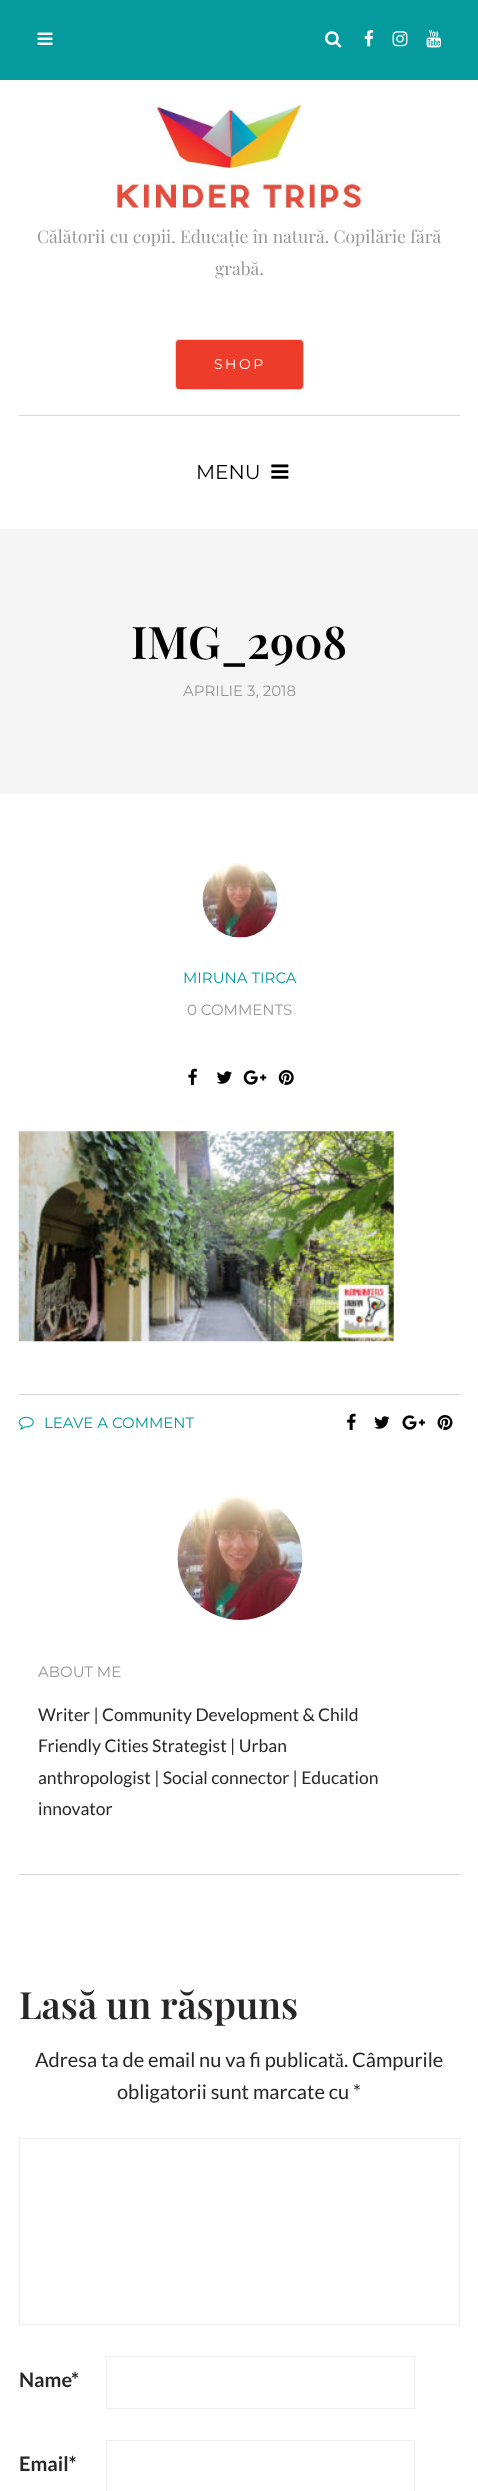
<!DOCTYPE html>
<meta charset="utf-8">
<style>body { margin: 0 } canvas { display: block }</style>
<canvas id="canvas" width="478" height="2491"></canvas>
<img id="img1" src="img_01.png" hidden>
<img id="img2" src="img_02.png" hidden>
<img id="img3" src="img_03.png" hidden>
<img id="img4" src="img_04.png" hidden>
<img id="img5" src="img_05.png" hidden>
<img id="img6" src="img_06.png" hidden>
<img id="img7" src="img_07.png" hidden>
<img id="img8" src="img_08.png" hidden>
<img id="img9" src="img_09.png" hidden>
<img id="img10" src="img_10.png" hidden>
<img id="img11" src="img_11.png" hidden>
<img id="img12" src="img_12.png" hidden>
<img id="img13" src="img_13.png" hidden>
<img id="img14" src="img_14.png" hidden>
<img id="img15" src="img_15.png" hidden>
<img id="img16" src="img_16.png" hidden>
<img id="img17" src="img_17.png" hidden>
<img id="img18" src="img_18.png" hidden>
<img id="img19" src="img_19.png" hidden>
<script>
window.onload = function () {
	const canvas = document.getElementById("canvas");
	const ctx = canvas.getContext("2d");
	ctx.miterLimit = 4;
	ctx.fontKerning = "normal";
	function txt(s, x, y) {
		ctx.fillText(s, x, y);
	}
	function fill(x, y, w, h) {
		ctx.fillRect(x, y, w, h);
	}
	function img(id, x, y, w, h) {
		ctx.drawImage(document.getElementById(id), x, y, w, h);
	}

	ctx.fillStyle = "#FFFFFF";
	fill(0, 0, 478, 2491);
	ctx.fillStyle = "#059B9E";
	fill(0, 0, 478, 80);
	img("img1", 37, 32, 16, 13);
	img("img2", 325, 31, 17, 17);
	img("img3", 364, 30, 10, 17);
	img("img4", 392, 31, 16, 16);
	img("img5", 426, 30, 15, 18);
	img("img6", 115, 105, 250, 104);
	ctx.fillStyle = "#ED3C2A";
	ctx.beginPath();
	ctx.roundRect(175.5, 339.5, 128, 50, 3.5);
	ctx.fill();
	ctx.strokeStyle = "#DEDEDE";
	ctx.stroke();
	ctx.fillStyle = "#D9D9D9";
	fill(19, 415, 441, 1);
	img("img7", 271, 464, 18, 15);
	ctx.fillStyle = "#F5F5F5";
	fill(0, 529, 478, 265);
	img("img8", 202, 863, 76, 75);
	img("img9", 188, 1068, 9, 17);
	img("img10", 216, 1071, 16, 13);
	img("img11", 243, 1070, 24, 15);
	img("img12", 278, 1070, 16, 15);
	img("img13", 18, 1131, 376, 211);
	ctx.fillStyle = "#D6D6D6";
	fill(19, 1394, 441, 1);
	img("img14", 18, 1416, 16, 14);
	img("img15", 347, 1413, 9, 17);
	img("img16", 374, 1416, 16, 13);
	img("img17", 402, 1415, 23, 15);
	img("img18", 437, 1415, 16, 15);
	fill(19, 1874, 441, 1);
	img("img19", 177, 1495, 126, 125);
	ctx.strokeStyle = "#EEEEEE";
	ctx.strokeRect(19.5, 2138.5, 440, 186);
	ctx.strokeRect(106.5, 2356.5, 308, 52);
	ctx.strokeRect(106.5, 2440.5, 308, 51);
	ctx.font = "17.5px Playfair Display";
	ctx.fillStyle = "#989898";
	txt("Călătorii cu copii. Educație în natură. Copilărie fără", 37, 243);
	txt("grabă.", 215, 275);
	ctx.letterSpacing = "2.5px";
	ctx.font = "100 14px Montserrat";
	ctx.fillStyle = "#FFFFFF";
	txt("SHOP", 214, 369);
	ctx.letterSpacing = "0px";
	ctx.font = "100 20px Montserrat";
	ctx.fillStyle = "#000000";
	txt("MENU", 196, 479);
	ctx.font = "600 45px Playfair Display";
	txt("IMG_2908", 131, 659);
	ctx.font = "100 15px Montserrat";
	ctx.fillStyle = "#989898";
	txt("APRILIE 3, 2018", 183, 696);
	ctx.fillStyle = "#059B9E";
	txt("MIRUNA TIRCA", 183, 983);
	ctx.fillStyle = "#989898";
	txt("0 COMMENTS", 187, 1015);
	ctx.fillStyle = "#059B9E";
	txt("LEAVE A COMMENT", 44, 1428);
	ctx.fillStyle = "#989898";
	txt("ABOUT ME", 38, 1677);
	ctx.font = "17.5px Lato";
	ctx.fillStyle = "#292629";
	txt("Writer | Community Development & Child", 38, 1721);
	txt("Friendly Cities Strategist | Urban", 38, 1752);
	txt("anthropologist | Social connector | Education", 38, 1784);
	txt("innovator", 38, 1815);
	ctx.font = "600 37.5px Playfair Display";
	txt("Lasă un răspuns", 19, 2019);
	ctx.font = "20px Lato";
	txt("Adresa ta de email nu va fi publicat", 35, 2067);
	ctx.font = "20px Liberation Serif";
	txt("ă", 335, 2067);
	ctx.font = "20px Lato";
	txt(". Câmpurile", 344, 2067);
	txt("obligatorii sunt marcate cu *", 117, 2099);
	ctx.font = "bold 20px Lato";
	txt("Name", 19, 2387);
	txt("*", 71, 2387);
	txt("Email*", 19, 2471);
};
</script>
